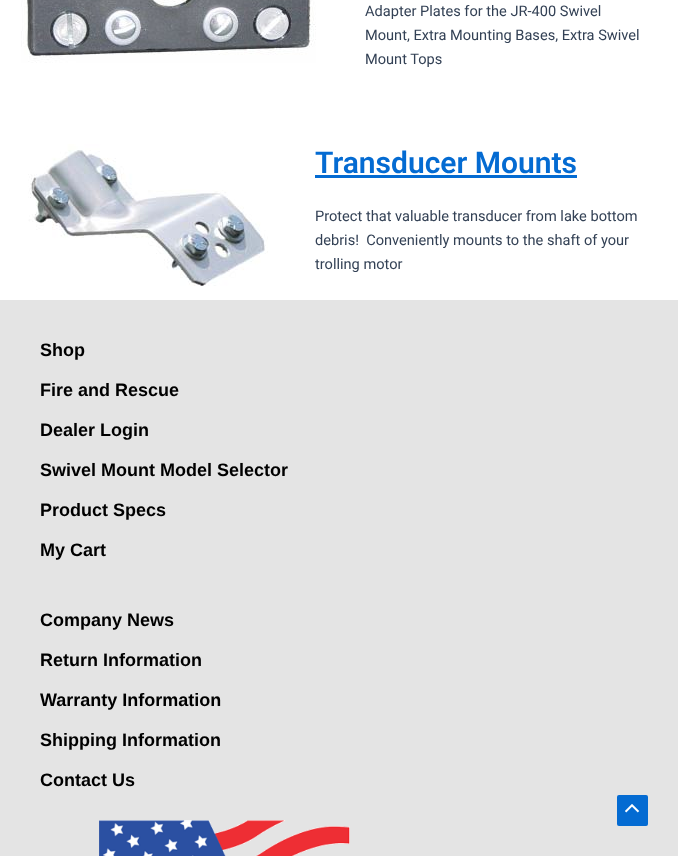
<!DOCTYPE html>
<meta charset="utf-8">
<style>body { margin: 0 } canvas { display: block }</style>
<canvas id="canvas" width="678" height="856"></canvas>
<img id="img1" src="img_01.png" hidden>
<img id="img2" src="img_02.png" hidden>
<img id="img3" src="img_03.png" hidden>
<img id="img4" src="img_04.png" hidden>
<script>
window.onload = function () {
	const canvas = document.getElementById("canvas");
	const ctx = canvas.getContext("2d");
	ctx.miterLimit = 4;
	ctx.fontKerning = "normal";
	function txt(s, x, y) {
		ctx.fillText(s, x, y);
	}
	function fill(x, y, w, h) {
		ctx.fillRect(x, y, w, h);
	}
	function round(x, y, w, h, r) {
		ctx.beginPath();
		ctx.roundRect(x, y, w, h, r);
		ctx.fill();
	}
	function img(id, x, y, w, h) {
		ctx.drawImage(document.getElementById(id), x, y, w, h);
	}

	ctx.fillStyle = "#FFFFFF";
	fill(0, 0, 678, 856);
	img("img1", 21, 0, 295, 63);
	img("img2", 28, 144, 240, 142);
	ctx.fillStyle = "#046BD2";
	fill(315, 175, 262, 3);
	ctx.fillStyle = "#E4E4E4";
	fill(0, 300, 678, 556);
	img("img3", 99, 820, 251, 36);
	ctx.fillStyle = "#046BD2";
	round(617, 795, 31, 31, 2);
	img("img4", 625, 804, 15, 9);
	ctx.font = "14.6px Roboto";
	ctx.fillStyle = "#334155";
	txt("Adapter Plates for the JR-400 Swivel", 365, 16);
	txt("Mount, Extra Mounting Bases, Extra Swivel", 365, 40);
	txt("Mount Tops", 365, 64);
	ctx.font = "600 30px Roboto";
	ctx.fillStyle = "#046BD2";
	txt("Transducer Mounts", 315, 173);
	ctx.font = "14.6px Roboto";
	ctx.fillStyle = "#334155";
	txt("Protect that valuable transducer from lake bottom", 315, 221);
	txt("debris!  Conveniently mounts to the shaft of your", 315, 245);
	txt("trolling motor", 315, 269);
	ctx.font = "bold 18px Liberation Sans";
	ctx.fillStyle = "#000000";
	txt("Shop", 40, 356);
	txt("Fire and Rescue", 40, 396);
	txt("Dealer Login", 40, 436);
	txt("Swivel Mount Model Selector", 40, 476);
	txt("Product Specs", 40, 516);
	txt("My Cart", 40, 556);
	txt("Company News", 40, 626);
	txt("Return Information", 40, 666);
	txt("Warranty Information", 40, 706);
	txt("Shipping Information", 40, 746);
	txt("Contact Us", 40, 786);
};
</script>
